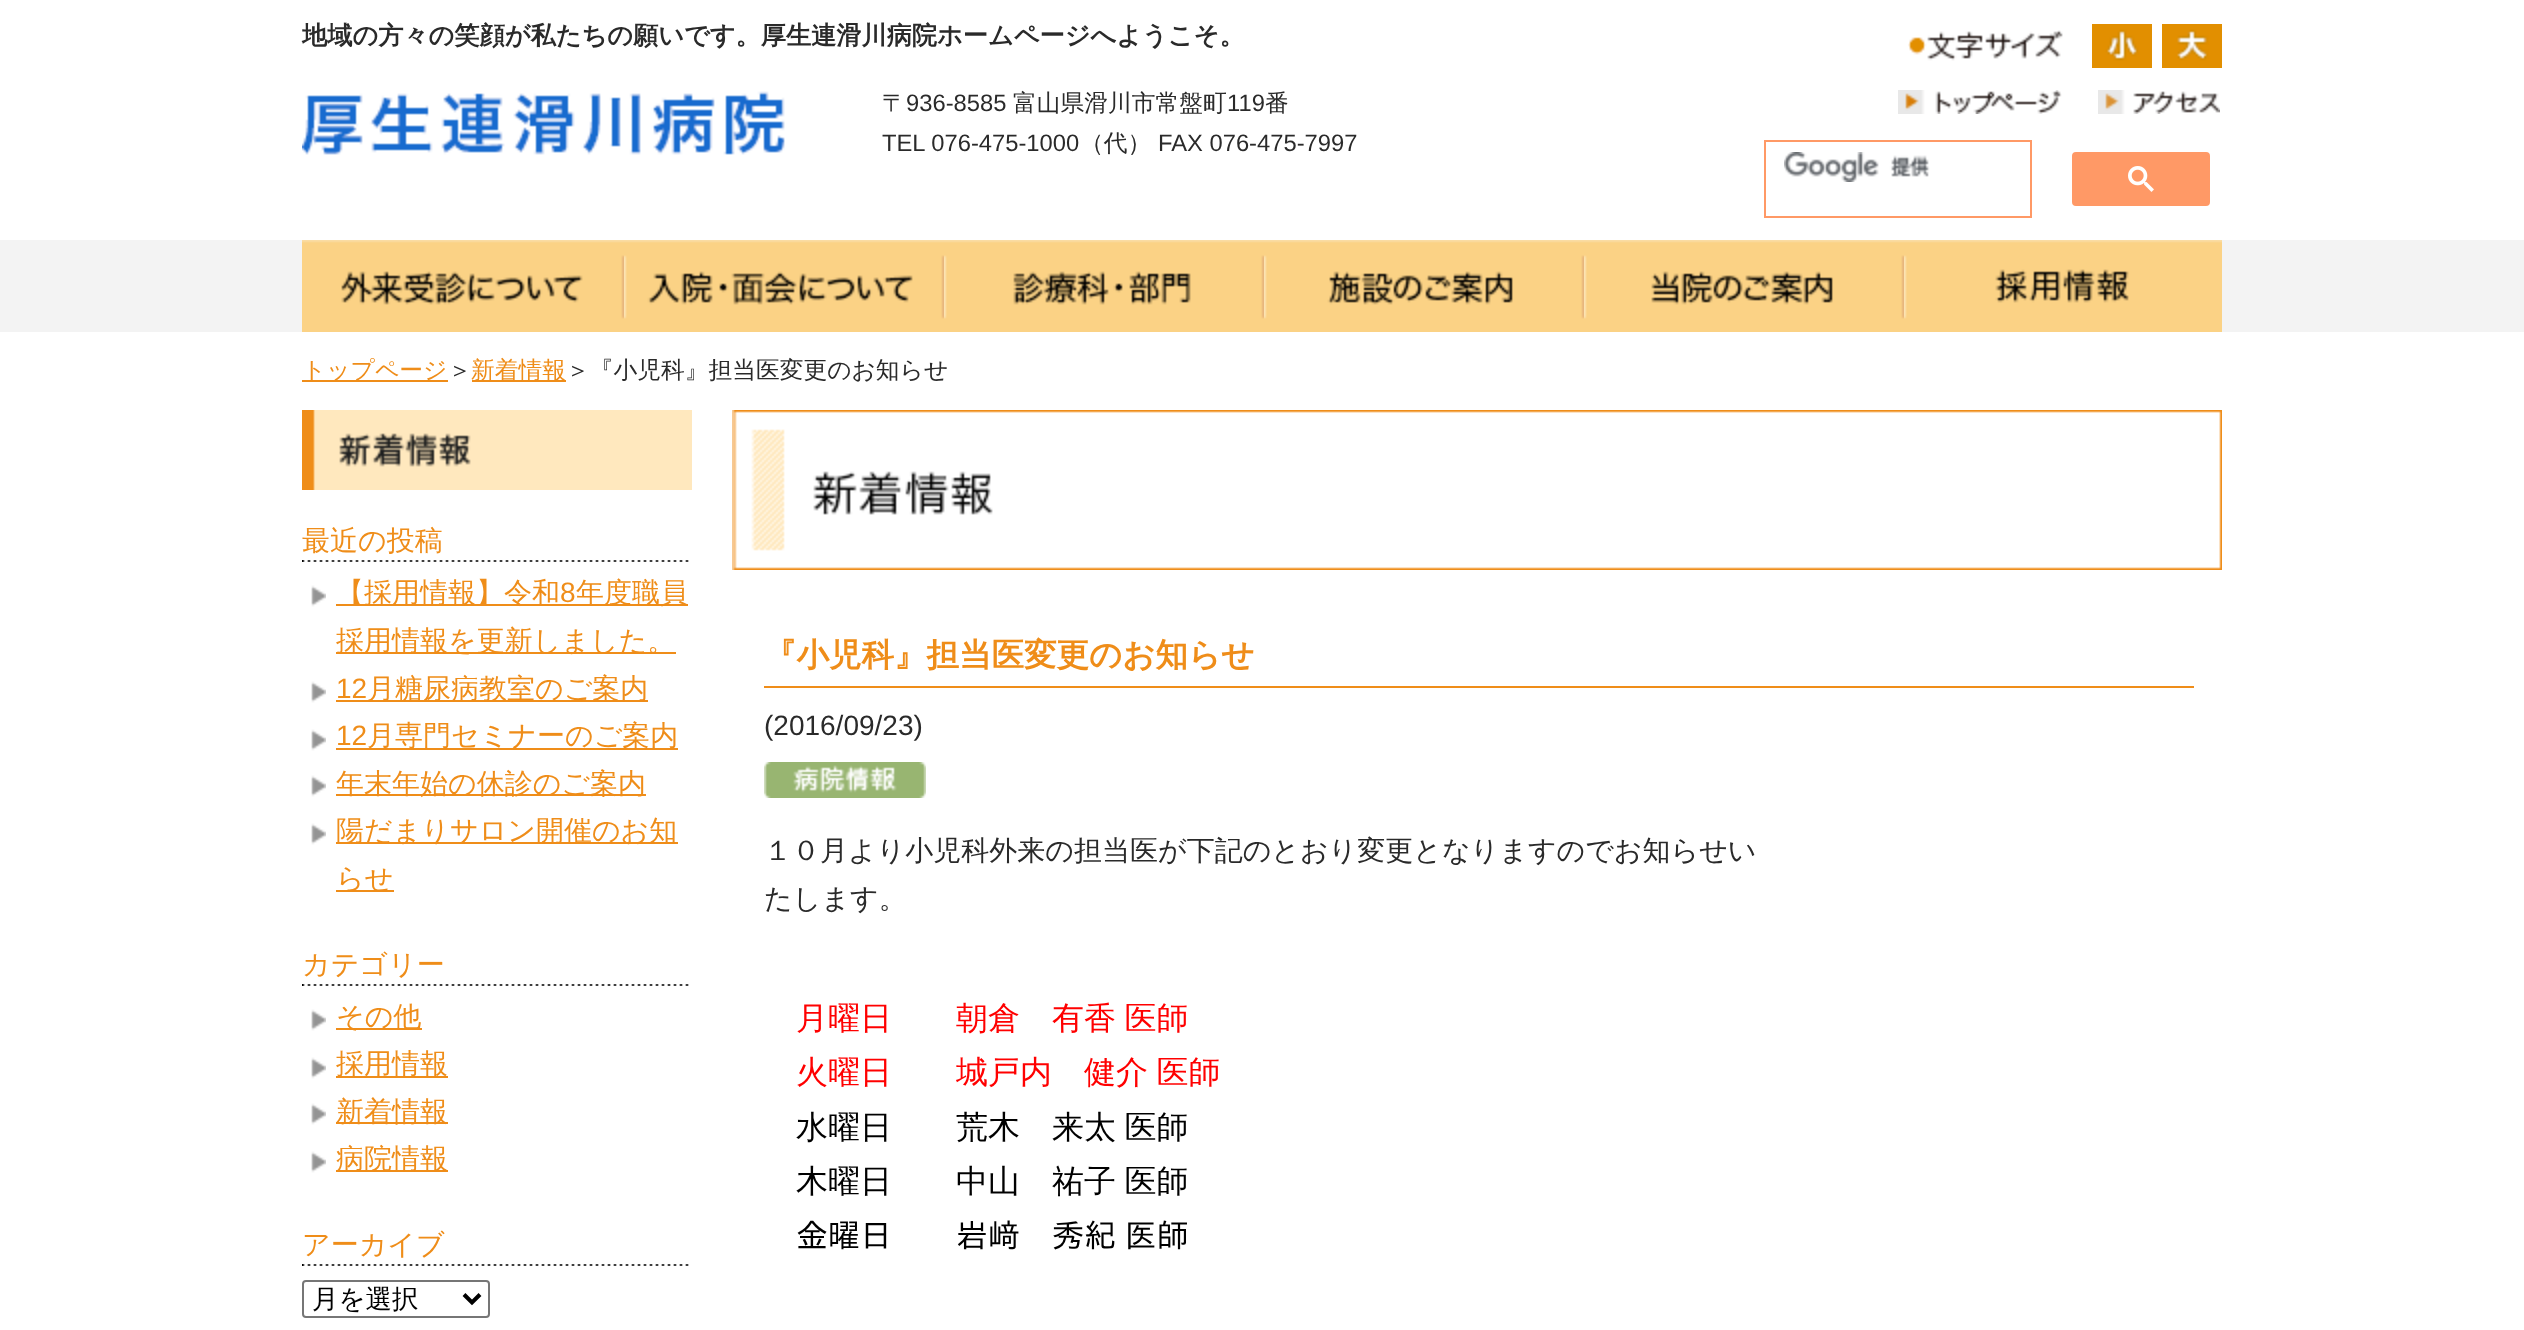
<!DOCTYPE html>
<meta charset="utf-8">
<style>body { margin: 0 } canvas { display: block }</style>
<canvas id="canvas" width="2524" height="1330"></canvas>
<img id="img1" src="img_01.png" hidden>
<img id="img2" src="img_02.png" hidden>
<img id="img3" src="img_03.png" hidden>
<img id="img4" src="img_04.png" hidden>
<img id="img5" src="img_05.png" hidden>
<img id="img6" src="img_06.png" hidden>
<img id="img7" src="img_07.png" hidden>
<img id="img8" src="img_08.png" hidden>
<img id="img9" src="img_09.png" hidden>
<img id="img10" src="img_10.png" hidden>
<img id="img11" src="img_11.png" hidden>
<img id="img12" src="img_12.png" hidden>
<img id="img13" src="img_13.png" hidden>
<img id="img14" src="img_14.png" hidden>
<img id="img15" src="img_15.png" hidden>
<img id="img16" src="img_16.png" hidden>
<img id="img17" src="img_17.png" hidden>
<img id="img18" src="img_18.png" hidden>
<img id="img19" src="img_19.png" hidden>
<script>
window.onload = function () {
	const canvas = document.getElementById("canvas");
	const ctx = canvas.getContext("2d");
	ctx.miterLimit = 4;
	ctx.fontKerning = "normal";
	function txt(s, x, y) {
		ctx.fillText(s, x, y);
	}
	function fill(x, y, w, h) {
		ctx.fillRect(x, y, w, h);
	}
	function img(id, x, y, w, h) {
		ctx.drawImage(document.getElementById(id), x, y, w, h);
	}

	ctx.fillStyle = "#FFFFFF";
	fill(0, 0, 2524, 1330);
	img("img1", 302, 91, 483, 64);
	img("img2", 1908, 30, 155, 31);
	img("img3", 2092, 24, 60, 44);
	img("img4", 2162, 24, 60, 44);
	img("img5", 1898, 90, 164, 24);
	img("img6", 2098, 90, 122, 24);
	ctx.strokeStyle = "#FF9966";
	ctx.lineWidth = 2;
	ctx.strokeRect(1765, 141, 266, 76);
	img("img7", 1784, 152, 146, 30);
	ctx.fillStyle = "#FF9966";
	ctx.beginPath();
	ctx.roundRect(2073, 153, 136, 52, 3);
	ctx.fill();
	ctx.stroke();
	img("img8", 2128, 166, 26, 26);
	ctx.fillStyle = "#F3F3F3";
	fill(0, 240, 2524, 92);
	img("img9", 302, 240, 322, 92);
	img("img10", 624, 240, 320, 92);
	img("img11", 944, 240, 320, 92);
	img("img12", 1264, 240, 320, 92);
	img("img13", 1584, 240, 320, 92);
	img("img14", 1904, 240, 318, 92);
	ctx.fillStyle = "#EF8D19";
	fill(302, 380, 146, 2);
	fill(472, 380, 94, 2);
	img("img15", 302, 410, 390, 80);
	img("img16", 302, 560, 387, 2);
	img("img17", 311, 585, 15, 22);
	fill(336, 604, 352, 2);
	fill(336, 652, 340, 2);
	img("img17", 311, 681, 15, 22);
	fill(336, 700, 312, 2);
	img("img17", 311, 729, 15, 22);
	fill(336, 748, 342, 2);
	img("img17", 311, 775, 15, 22);
	fill(336, 794, 310, 2);
	img("img17", 311, 823, 15, 22);
	fill(336, 842, 342, 2);
	fill(336, 890, 58, 2);
	img("img16", 302, 984, 387, 2);
	img("img17", 311, 1009, 15, 22);
	fill(336, 1028, 86, 2);
	img("img17", 311, 1057, 15, 22);
	fill(336, 1076, 112, 2);
	img("img17", 311, 1103, 15, 22);
	fill(336, 1122, 112, 2);
	img("img17", 311, 1151, 15, 22);
	fill(336, 1170, 112, 2);
	img("img16", 302, 1264, 387, 2);
	ctx.beginPath();
	ctx.roundRect(303, 1281, 186, 36, 3);
	ctx.strokeStyle = "#767676";
	ctx.stroke();
	ctx.beginPath();
	ctx.moveTo(464, 1294.5);
	ctx.lineTo(472, 1302.5);
	ctx.lineTo(480, 1294.5);
	ctx.strokeStyle = "#000000";
	ctx.lineWidth = 4;
	ctx.stroke();
	img("img18", 732, 410, 1490, 160);
	fill(764, 686, 1430, 2);
	img("img19", 764, 762, 162, 36);
	ctx.font = "bold 25.2px WenQuanYi Zen Hei";
	ctx.fillStyle = "#2A2A2A";
	txt("地域の方々の笑顔が私たちの願いです。厚生連滑川病院ホームページへようこそ。", 302, 44);
	ctx.font = "500 23.75px WenQuanYi Zen Hei";
	txt("〒", 882, 111);
	ctx.font = "23.75px Liberation Sans";
	txt("936-8585", 906, 111);
	ctx.font = "500 23.75px WenQuanYi Zen Hei";
	txt("富山県滑川市常盤町", 1013, 111);
	ctx.font = "23.75px Liberation Sans";
	txt("119", 1227, 111);
	ctx.font = "500 23.75px WenQuanYi Zen Hei";
	txt("番", 1265, 111);
	ctx.font = "23.75px Liberation Sans";
	txt("TEL 076-475-1000", 882, 151);
	ctx.font = "500 23.75px WenQuanYi Zen Hei";
	txt("（代）", 1080, 151);
	ctx.font = "23.75px Liberation Sans";
	txt("FAX 076-475-7997", 1158, 151);
	ctx.font = "500 23.75px WenQuanYi Zen Hei";
	ctx.fillStyle = "#EF8D19";
	txt("トップページ", 302, 378);
	ctx.fillStyle = "#2A2A2A";
	txt("＞", 448, 378);
	ctx.fillStyle = "#EF8D19";
	txt("新着情報", 471, 378);
	ctx.fillStyle = "#2A2A2A";
	txt("＞『小児科』担当医変更のお知らせ", 566, 378);
	ctx.font = "500 28px WenQuanYi Zen Hei";
	ctx.fillStyle = "#EF8D19";
	txt("最近の投稿", 302, 550);
	txt("【採用情報】令和", 336, 602);
	ctx.font = "28px Liberation Sans";
	txt("8", 560, 602);
	ctx.font = "500 28px WenQuanYi Zen Hei";
	txt("年度職員", 576, 602);
	txt("採用情報を更新しました。", 336, 650);
	ctx.font = "28px Liberation Sans";
	txt("12", 336, 698);
	ctx.font = "500 28px WenQuanYi Zen Hei";
	txt("月糖尿病教室のご案内", 367, 698);
	ctx.font = "28px Liberation Sans";
	txt("12", 336, 745);
	ctx.font = "500 28px WenQuanYi Zen Hei";
	txt("月専門セミナーのご案内", 367, 745);
	txt("年末年始の休診のご案内", 336, 793);
	txt("陽だまりサロン開催のお知", 336, 840);
	txt("らせ", 336, 888);
	txt("カテゴリー", 302, 974);
	txt("その他", 336, 1026);
	txt("採用情報", 336, 1073);
	txt("新着情報", 336, 1121);
	txt("病院情報", 336, 1168);
	txt("アーカイブ", 302, 1254);
	ctx.font = "500 26.5px WenQuanYi Zen Hei";
	ctx.fillStyle = "#000000";
	txt("月を選択", 312, 1308);
	ctx.font = "bold 32.5px WenQuanYi Zen Hei";
	ctx.fillStyle = "#EF8D19";
	txt("『小児科』担当医変更のお知らせ", 764, 666);
	ctx.font = "28px Liberation Sans";
	ctx.fillStyle = "#2A2A2A";
	txt("(2016/09/23)", 764, 735);
	ctx.font = "500 28px WenQuanYi Zen Hei";
	txt("１０月より小児科外来の担当医が下記のとおり変更となりますのでお知らせい", 764, 860);
	txt("たします。", 764, 908);
	ctx.wordSpacing = "-1px";
	ctx.font = "500 32px WenQuanYi Zen Hei";
	ctx.fillStyle = "#FF0000";
	txt("月曜日　　朝倉　有香 医師", 796, 1029);
	txt("火曜日　　城戸内　健介 医師", 796, 1083);
	ctx.fillStyle = "#000000";
	txt("水曜日　　荒木　来太 医師", 796, 1138);
	txt("木曜日　　中山　祐子 医師", 796, 1192);
	ctx.wordSpacing = "0px";
	ctx.font = "32px IPAPGothic";
	txt("金曜日　　岩﨑　秀紀 医師", 796, 1247);
};
</script>
